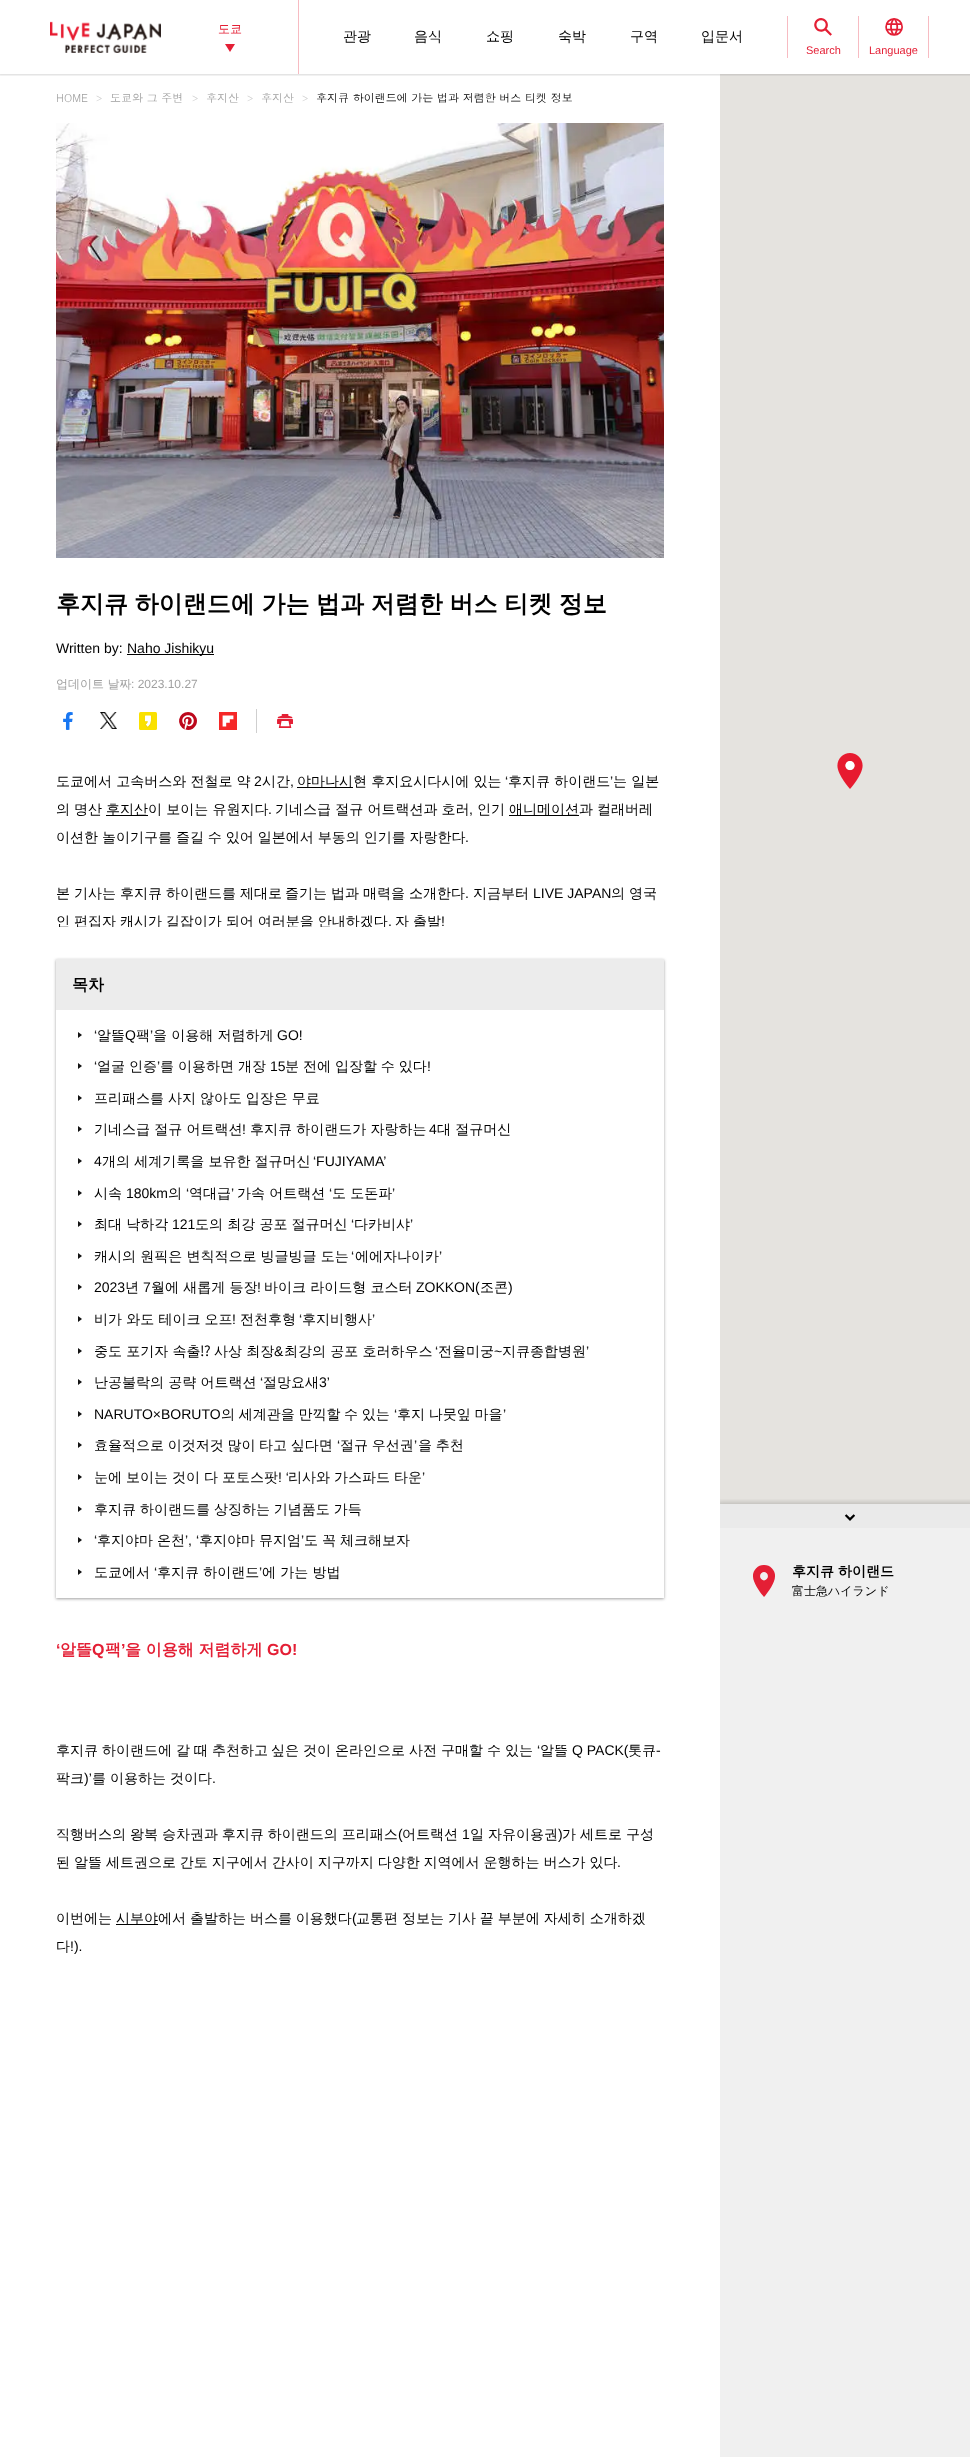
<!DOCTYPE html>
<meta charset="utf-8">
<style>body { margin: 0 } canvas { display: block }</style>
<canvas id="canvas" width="970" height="2457"></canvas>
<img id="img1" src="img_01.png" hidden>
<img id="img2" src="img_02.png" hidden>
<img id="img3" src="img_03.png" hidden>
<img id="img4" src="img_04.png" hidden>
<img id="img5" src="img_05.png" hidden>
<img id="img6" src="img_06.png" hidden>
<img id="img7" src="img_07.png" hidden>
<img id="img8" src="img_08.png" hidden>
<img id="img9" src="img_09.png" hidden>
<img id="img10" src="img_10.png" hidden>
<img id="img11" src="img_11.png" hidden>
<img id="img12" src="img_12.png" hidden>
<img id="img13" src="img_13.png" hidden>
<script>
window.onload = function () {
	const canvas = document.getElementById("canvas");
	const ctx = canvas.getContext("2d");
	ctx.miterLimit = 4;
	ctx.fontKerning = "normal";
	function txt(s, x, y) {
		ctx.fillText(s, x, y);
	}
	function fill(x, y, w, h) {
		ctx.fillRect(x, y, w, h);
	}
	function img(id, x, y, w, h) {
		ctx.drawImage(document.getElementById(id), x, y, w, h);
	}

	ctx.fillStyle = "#FFFFFF";
	fill(0, 0, 970, 2457);
	ctx.fillStyle = "#E5E3DF";
	fill(720, 74, 250, 1430);
	ctx.save();
	ctx.beginPath();
	ctx.rect(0, 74, 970, 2);
	ctx.clip();
	ctx.fillStyle = "rgba(50, 50, 50, 0.2)";
	ctx.filter = "blur(1px)";
	ctx.beginPath();
	ctx.rect(-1, -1, 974, 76);
	ctx.fill();
	ctx.filter = "none";
	ctx.restore();
	img("img1", 50, 21, 111, 32);
	ctx.fillStyle = "#E41F35";
	ctx.beginPath();
	ctx.moveTo(225, 44);
	ctx.lineTo(235, 44);
	ctx.lineTo(230, 52);
	ctx.closePath();
	ctx.fill();
	ctx.fillStyle = "#F7BBC2";
	fill(298, 0, 1, 74);
	fill(787, 16, 1, 42);
	img("img2", 814, 18, 18, 18);
	fill(928, 16, 1, 42);
	fill(858, 16, 1, 42);
	img("img3", 885, 18, 18, 18);
	img("img4", 56, 123, 608, 435);
	ctx.fillStyle = "#000000";
	fill(127, 654, 87, 1);
	ctx.fillStyle = "#CFCFCF";
	fill(256, 709, 1, 24);
	img("img5", 63, 712, 10, 18);
	img("img6", 100, 712, 17, 17);
	img("img7", 139, 712, 18, 18);
	img("img8", 179, 712, 18, 18);
	img("img9", 219, 712, 18, 18);
	img("img10", 277, 714, 16, 14);
	ctx.fillStyle = "#000000";
	fill(297, 787, 56, 1);
	fill(106, 815, 42, 1);
	fill(509, 815, 70, 1);
	ctx.save();
	ctx.beginPath();
	ctx.moveTo(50, 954);
	ctx.lineTo(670, 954);
	ctx.lineTo(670, 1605);
	ctx.lineTo(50, 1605);
	ctx.closePath();
	ctx.moveTo(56, 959);
	ctx.lineTo(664, 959);
	ctx.lineTo(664, 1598);
	ctx.lineTo(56, 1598);
	ctx.closePath();
	ctx.clip("evenodd");
	ctx.fillStyle = "rgba(18, 18, 18, 0.4)";
	ctx.filter = "blur(1.5px)";
	ctx.beginPath();
	ctx.rect(56, 960, 608, 639);
	ctx.fill();
	ctx.filter = "none";
	ctx.restore();
	ctx.fillStyle = "#ECECEC";
	fill(56, 959, 608, 51);
	ctx.fillStyle = "#131313";
	ctx.beginPath();
	ctx.moveTo(78, 1038);
	ctx.lineTo(78, 1032);
	ctx.lineTo(82, 1035);
	ctx.closePath();
	ctx.fill();
	ctx.beginPath();
	ctx.moveTo(78, 1069);
	ctx.lineTo(78, 1063);
	ctx.lineTo(82, 1066);
	ctx.closePath();
	ctx.fill();
	ctx.beginPath();
	ctx.moveTo(78, 1101);
	ctx.lineTo(78, 1095);
	ctx.lineTo(82, 1098);
	ctx.closePath();
	ctx.fill();
	ctx.beginPath();
	ctx.moveTo(78, 1132);
	ctx.lineTo(78, 1126);
	ctx.lineTo(82, 1129);
	ctx.closePath();
	ctx.fill();
	ctx.beginPath();
	ctx.moveTo(78, 1164);
	ctx.lineTo(78, 1158);
	ctx.lineTo(82, 1161);
	ctx.closePath();
	ctx.fill();
	ctx.beginPath();
	ctx.moveTo(78, 1196);
	ctx.lineTo(78, 1190);
	ctx.lineTo(82, 1193);
	ctx.closePath();
	ctx.fill();
	ctx.beginPath();
	ctx.moveTo(78, 1227);
	ctx.lineTo(78, 1221);
	ctx.lineTo(82, 1224);
	ctx.closePath();
	ctx.fill();
	ctx.beginPath();
	ctx.moveTo(78, 1259);
	ctx.lineTo(78, 1253);
	ctx.lineTo(82, 1256);
	ctx.closePath();
	ctx.fill();
	ctx.beginPath();
	ctx.moveTo(78, 1290);
	ctx.lineTo(78, 1284);
	ctx.lineTo(82, 1287);
	ctx.closePath();
	ctx.fill();
	ctx.beginPath();
	ctx.moveTo(78, 1322);
	ctx.lineTo(78, 1316);
	ctx.lineTo(82, 1319);
	ctx.closePath();
	ctx.fill();
	ctx.beginPath();
	ctx.moveTo(78, 1354);
	ctx.lineTo(78, 1348);
	ctx.lineTo(82, 1351);
	ctx.closePath();
	ctx.fill();
	ctx.beginPath();
	ctx.moveTo(78, 1385);
	ctx.lineTo(78, 1379);
	ctx.lineTo(82, 1382);
	ctx.closePath();
	ctx.fill();
	ctx.beginPath();
	ctx.moveTo(78, 1417);
	ctx.lineTo(78, 1411);
	ctx.lineTo(82, 1414);
	ctx.closePath();
	ctx.fill();
	ctx.beginPath();
	ctx.moveTo(78, 1448);
	ctx.lineTo(78, 1442);
	ctx.lineTo(82, 1445);
	ctx.closePath();
	ctx.fill();
	ctx.beginPath();
	ctx.moveTo(78, 1480);
	ctx.lineTo(78, 1474);
	ctx.lineTo(82, 1477);
	ctx.closePath();
	ctx.fill();
	ctx.beginPath();
	ctx.moveTo(78, 1512);
	ctx.lineTo(78, 1506);
	ctx.lineTo(82, 1509);
	ctx.closePath();
	ctx.fill();
	ctx.beginPath();
	ctx.moveTo(78, 1543);
	ctx.lineTo(78, 1537);
	ctx.lineTo(82, 1540);
	ctx.closePath();
	ctx.fill();
	ctx.beginPath();
	ctx.moveTo(78, 1575);
	ctx.lineTo(78, 1569);
	ctx.lineTo(82, 1572);
	ctx.closePath();
	ctx.fill();
	ctx.fillStyle = "#000000";
	fill(116, 1924, 42, 1);
	ctx.fillStyle = "#F0F0F0";
	fill(720, 1528, 250, 929);
	img("img11", 837, 753, 26, 36);
	ctx.save();
	ctx.beginPath();
	ctx.rect(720, 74, 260, 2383);
	ctx.clip();
	ctx.beginPath();
	ctx.rect(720, 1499, 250, 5);
	ctx.clip();
	ctx.fillStyle = "rgba(50, 50, 50, 0.2)";
	ctx.filter = "blur(2px)";
	ctx.beginPath();
	ctx.rect(718, 1502, 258, 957);
	ctx.fill();
	ctx.filter = "none";
	ctx.restore();
	ctx.fillStyle = "#EAEAEA";
	fill(720, 1504, 250, 24);
	img("img12", 844, 1514, 11, 7);
	img("img13", 753, 1565, 22, 32);
	ctx.font = "500 12px WenQuanYi Zen Hei";
	ctx.fillStyle = "#E41F35";
	txt("도쿄", 218, 33);
	ctx.font = "500 14px WenQuanYi Zen Hei";
	ctx.fillStyle = "#000000";
	txt("관광", 343, 41);
	txt("음식", 414, 41);
	txt("쇼핑", 486, 41);
	txt("숙박", 558, 41);
	txt("구역", 630, 41);
	txt("입문서", 701, 41);
	ctx.font = "11px Liberation Sans";
	ctx.fillStyle = "#E41F35";
	txt("Search", 806, 54);
	txt("Language", 869, 54);
	ctx.font = "11px Dotum";
	ctx.fillStyle = "#A0A0A0";
	txt("HOME", 56, 102);
	ctx.font = "10px Dotum";
	ctx.fillStyle = "#CCCCCC";
	txt(">", 96, 102);
	ctx.font = "11px Dotum";
	ctx.fillStyle = "#A0A0A0";
	txt("도쿄와 그 주변", 110, 102);
	ctx.font = "10px Dotum";
	ctx.fillStyle = "#CCCCCC";
	txt(">", 192, 102);
	ctx.font = "11px Dotum";
	ctx.fillStyle = "#A0A0A0";
	txt("후지산", 206, 102);
	ctx.font = "10px Dotum";
	ctx.fillStyle = "#CCCCCC";
	txt(">", 247, 102);
	ctx.font = "11px Dotum";
	ctx.fillStyle = "#A0A0A0";
	txt("후지산", 261, 102);
	ctx.font = "10px Dotum";
	ctx.fillStyle = "#CCCCCC";
	txt(">", 302, 102);
	ctx.font = "11px Dotum";
	ctx.fillStyle = "#000000";
	txt("후지큐 하이랜드에 가는 법과 저렴한 버스 티켓 정보", 316, 102);
	ctx.wordSpacing = "-0.5px";
	ctx.font = "bold 24px WenQuanYi Zen Hei";
	txt("후지큐 하이랜드에 가는 법과 저렴한 버스 티켓 정보", 56, 612);
	ctx.wordSpacing = "0px";
	ctx.font = "14px Liberation Sans";
	txt("Written by:", 56, 653);
	txt("Naho Jishikyu", 127, 653);
	ctx.font = "500 12px WenQuanYi Zen Hei";
	ctx.fillStyle = "#A0A0A0";
	txt("업데이트 날짜", 56, 688);
	ctx.font = "12px Liberation Sans";
	txt(": 2023.10.27", 131, 688);
	ctx.font = "500 14px WenQuanYi Zen Hei";
	ctx.fillStyle = "#000000";
	txt("도쿄에서 고속버스와 전철로 약", 56, 786);
	ctx.font = "14px Liberation Sans";
	txt("2", 254, 786);
	ctx.font = "500 14px WenQuanYi Zen Hei";
	txt("시간", 262, 786);
	txt("야마나시", 297, 786);
	txt("현 후지요시다시에 있는", 353, 786);
	ctx.font = "14px Liberation Sans";
	txt("‘", 505, 786);
	ctx.font = "500 14px WenQuanYi Zen Hei";
	txt("후지큐 하이랜드", 508, 786);
	ctx.font = "14px Liberation Sans";
	txt("’", 610, 786);
	ctx.font = "500 14px WenQuanYi Zen Hei";
	txt("는 일본", 613, 786);
	ctx.font = "14px Liberation Sans";
	txt(",", 290, 786);
	ctx.wordSpacing = "-0.25px";
	ctx.font = "500 14px WenQuanYi Zen Hei";
	txt("의 명산", 56, 814);
	ctx.wordSpacing = "0px";
	txt("후지산", 106, 814);
	txt("이 보이는 유원지다", 148, 814);
	ctx.font = "14px Liberation Sans";
	txt(".", 268, 814);
	ctx.font = "500 14px WenQuanYi Zen Hei";
	txt("기네스급 절규 어트랙션과 호러", 275, 814);
	ctx.font = "14px Liberation Sans";
	txt(",", 469, 814);
	ctx.font = "500 14px WenQuanYi Zen Hei";
	txt("인기", 477, 814);
	txt("애니메이션", 509, 814);
	ctx.wordSpacing = "-0.25px";
	txt("과 컬래버레", 579, 814);
	txt("이션한 놀이기구를 즐길 수 있어 일본에서 부동의 인기를 자랑한다", 56, 842);
	ctx.wordSpacing = "0px";
	ctx.font = "14px Liberation Sans";
	txt(".", 465, 842);
	ctx.font = "500 14px WenQuanYi Zen Hei";
	txt("본", 56, 898);
	txt("기사는", 74, 898);
	txt("후지큐", 120, 898);
	txt("하이랜드를", 166, 898);
	txt("제대로", 240, 898);
	txt("즐기는", 285, 898);
	txt("법과", 331, 898);
	txt("매력을", 363, 898);
	txt("소개한다", 409, 898);
	ctx.font = "14px Liberation Sans";
	txt(".", 465, 898);
	ctx.font = "500 14px WenQuanYi Zen Hei";
	txt("지금부터", 473, 898);
	ctx.font = "14px Liberation Sans";
	txt("LIVE JAPAN", 533, 898);
	ctx.font = "500 14px WenQuanYi Zen Hei";
	txt("의", 611, 898);
	txt("영국", 629, 898);
	ctx.wordSpacing = "-0.25px";
	txt("인 편집자 캐시가 길잡이가 되어 여러분을 안내하겠다", 56, 926);
	ctx.wordSpacing = "0px";
	ctx.font = "14px Liberation Sans";
	txt(".", 388, 926);
	ctx.wordSpacing = "-0.25px";
	ctx.font = "500 14px WenQuanYi Zen Hei";
	txt("자 출발", 395, 926);
	ctx.wordSpacing = "0px";
	ctx.font = "14px Liberation Sans";
	txt("!", 441, 926);
	ctx.fillStyle = "#FFFFFF";
	fill(59, 927, 380, 2);
	ctx.font = "bold 16px WenQuanYi Zen Hei";
	ctx.fillStyle = "#000000";
	txt("목차", 72, 990);
	ctx.font = "14px Liberation Sans";
	txt("‘", 94, 1040);
	ctx.font = "500 14px WenQuanYi Zen Hei";
	txt("알뜰", 97, 1040);
	ctx.font = "14px Liberation Sans";
	txt("Q", 125, 1040);
	ctx.font = "500 14px WenQuanYi Zen Hei";
	txt("팩", 136, 1040);
	ctx.font = "14px Liberation Sans";
	txt("’", 150, 1040);
	ctx.font = "500 14px WenQuanYi Zen Hei";
	txt("을 이용해 저렴하게", 153, 1040);
	ctx.font = "14px Liberation Sans";
	txt("GO!", 277, 1040);
	txt("‘", 94, 1071);
	ctx.wordSpacing = "-0.25px";
	ctx.font = "500 14px WenQuanYi Zen Hei";
	txt("얼굴 인증", 97, 1071);
	ctx.wordSpacing = "0px";
	ctx.font = "14px Liberation Sans";
	txt("’", 157, 1071);
	ctx.wordSpacing = "-0.25px";
	ctx.font = "500 14px WenQuanYi Zen Hei";
	txt("를 이용하면 개장", 160, 1071);
	ctx.wordSpacing = "0px";
	ctx.font = "14px Liberation Sans";
	txt("15", 270, 1071);
	ctx.wordSpacing = "-0.25px";
	ctx.font = "500 14px WenQuanYi Zen Hei";
	txt("분 전에 입장할 수 있다", 285, 1071);
	ctx.wordSpacing = "0px";
	ctx.font = "14px Liberation Sans";
	txt("!", 427, 1071);
	ctx.wordSpacing = "-0.25px";
	ctx.font = "500 14px WenQuanYi Zen Hei";
	txt("프리패스를 사지 않아도 입장은 무료", 94, 1103);
	ctx.wordSpacing = "0px";
	txt("기네스급 절규 어트랙션", 94, 1134);
	ctx.font = "14px Liberation Sans";
	txt("!", 242, 1134);
	ctx.font = "500 14px WenQuanYi Zen Hei";
	txt("후지큐 하이랜드가 자랑하는", 250, 1134);
	ctx.font = "14px Liberation Sans";
	txt("4", 429, 1134);
	ctx.font = "500 14px WenQuanYi Zen Hei";
	txt("대 절규머신", 437, 1134);
	ctx.font = "14px Liberation Sans";
	txt("4", 94, 1166);
	ctx.font = "500 14px WenQuanYi Zen Hei";
	txt("개의 세계기록을 보유한 절규머신", 102, 1166);
	ctx.font = "14px Liberation Sans";
	txt("‘FUJIYAMA’", 313, 1166);
	ctx.font = "500 14px WenQuanYi Zen Hei";
	txt("시속", 94, 1198);
	ctx.font = "14px Liberation Sans";
	txt("180km", 126, 1198);
	ctx.font = "500 14px WenQuanYi Zen Hei";
	txt("의", 168, 1198);
	ctx.font = "14px Liberation Sans";
	txt("‘", 186, 1198);
	ctx.font = "500 14px WenQuanYi Zen Hei";
	txt("역대급", 189, 1198);
	ctx.font = "14px Liberation Sans";
	txt("’", 231, 1198);
	ctx.font = "500 14px WenQuanYi Zen Hei";
	txt("가속 어트랙션", 237, 1198);
	ctx.font = "14px Liberation Sans";
	txt("‘", 329, 1198);
	ctx.font = "500 14px WenQuanYi Zen Hei";
	txt("도 도돈파", 332, 1198);
	ctx.font = "14px Liberation Sans";
	txt("’", 392, 1198);
	ctx.font = "500 14px WenQuanYi Zen Hei";
	txt("최대 낙하각", 94, 1229);
	ctx.font = "14px Liberation Sans";
	txt("121", 172, 1229);
	ctx.font = "500 14px WenQuanYi Zen Hei";
	txt("도의 최강 공포 절규머신", 195, 1229);
	ctx.font = "14px Liberation Sans";
	txt("‘", 351, 1229);
	ctx.font = "500 14px WenQuanYi Zen Hei";
	txt("다카비샤", 354, 1229);
	ctx.font = "14px Liberation Sans";
	txt("’", 410, 1229);
	ctx.font = "500 14px WenQuanYi Zen Hei";
	txt("캐시의 원픽은 변칙적으로 빙글빙글 도는", 94, 1261);
	ctx.font = "14px Liberation Sans";
	txt("‘", 351, 1261);
	ctx.font = "500 14px WenQuanYi Zen Hei";
	txt("에에자나이카", 355, 1261);
	ctx.font = "14px Liberation Sans";
	txt("’", 439, 1261);
	txt("2023", 94, 1292);
	ctx.font = "500 14px WenQuanYi Zen Hei";
	txt("년", 125, 1292);
	ctx.font = "14px Liberation Sans";
	txt("7", 143, 1292);
	ctx.font = "500 14px WenQuanYi Zen Hei";
	txt("월에 새롭게 등장", 151, 1292);
	ctx.font = "14px Liberation Sans";
	txt("!", 257, 1292);
	ctx.font = "500 14px WenQuanYi Zen Hei";
	txt("바이크 라이드형 코스터", 264, 1292);
	ctx.font = "14px Liberation Sans";
	txt("ZOKKON(", 416, 1292);
	ctx.font = "500 14px WenQuanYi Zen Hei";
	txt("조콘", 480, 1292);
	ctx.font = "14px Liberation Sans";
	txt(")", 508, 1292);
	ctx.font = "500 14px WenQuanYi Zen Hei";
	txt("비가 와도 테이크 오프", 94, 1324);
	ctx.font = "14px Liberation Sans";
	txt("!", 232, 1324);
	ctx.font = "500 14px WenQuanYi Zen Hei";
	txt("전천후형", 240, 1324);
	ctx.font = "14px Liberation Sans";
	txt("‘", 299, 1324);
	ctx.font = "500 14px WenQuanYi Zen Hei";
	txt("후지비행사", 302, 1324);
	ctx.font = "14px Liberation Sans";
	txt("’", 372, 1324);
	ctx.font = "500 14px WenQuanYi Zen Hei";
	txt("중도 포기자 속출", 94, 1356);
	ctx.font = "14px Noto Sans CJK KR";
	txt("⁉", 200, 1356);
	ctx.font = "500 14px WenQuanYi Zen Hei";
	txt("사상 최장", 214, 1356);
	ctx.font = "14px Liberation Sans";
	txt("&", 274, 1356);
	ctx.font = "500 14px WenQuanYi Zen Hei";
	txt("최강의 공포 호러하우스", 284, 1356);
	ctx.font = "14px Liberation Sans";
	txt("‘", 435, 1356);
	ctx.font = "500 14px WenQuanYi Zen Hei";
	txt("전율미궁", 438, 1356);
	ctx.font = "14px Liberation Sans";
	txt("~", 494, 1356);
	ctx.font = "500 14px WenQuanYi Zen Hei";
	txt("지큐종합병원", 502, 1356);
	ctx.font = "14px Liberation Sans";
	txt("’", 586, 1356);
	ctx.font = "500 14px WenQuanYi Zen Hei";
	txt("난공불락의 공략 어트랙션", 94, 1387);
	ctx.font = "14px Liberation Sans";
	txt("‘", 260, 1387);
	ctx.font = "500 14px WenQuanYi Zen Hei";
	txt("절망요새", 263, 1387);
	ctx.font = "14px Liberation Sans";
	txt("3’", 319, 1387);
	txt("NARUTO×BORUTO", 94, 1419);
	ctx.wordSpacing = "-0.5px";
	ctx.font = "500 14px WenQuanYi Zen Hei";
	txt("의 세계관을 만끽할 수 있는", 221, 1419);
	ctx.wordSpacing = "0px";
	ctx.font = "14px Liberation Sans";
	txt("‘", 394, 1419);
	ctx.wordSpacing = "-0.5px";
	ctx.font = "500 14px WenQuanYi Zen Hei";
	txt("후지 나뭇잎 마을", 397, 1419);
	ctx.wordSpacing = "0px";
	ctx.font = "14px Liberation Sans";
	txt("’", 503, 1419);
	ctx.wordSpacing = "-0.5px";
	ctx.font = "500 14px WenQuanYi Zen Hei";
	txt("효율적으로 이것저것 많이 타고 싶다면", 94, 1450);
	ctx.wordSpacing = "0px";
	ctx.font = "14px Liberation Sans";
	txt("‘", 337, 1450);
	ctx.wordSpacing = "-0.5px";
	ctx.font = "500 14px WenQuanYi Zen Hei";
	txt("절규 우선권", 340, 1450);
	ctx.wordSpacing = "0px";
	ctx.font = "14px Liberation Sans";
	txt("’", 414, 1450);
	ctx.wordSpacing = "-0.5px";
	ctx.font = "500 14px WenQuanYi Zen Hei";
	txt("을 추천", 418, 1450);
	ctx.wordSpacing = "0px";
	txt("눈에", 94, 1482);
	txt("보이는", 126, 1482);
	txt("것이", 172, 1482);
	txt("다", 204, 1482);
	txt("포토스팟", 222, 1482);
	ctx.font = "14px Liberation Sans";
	txt("! ‘", 278, 1482);
	ctx.font = "500 14px WenQuanYi Zen Hei";
	txt("리사와", 288, 1482);
	txt("가스파드", 334, 1482);
	txt("타운", 394, 1482);
	ctx.font = "14px Liberation Sans";
	txt("’", 422, 1482);
	ctx.wordSpacing = "-0.25px";
	ctx.font = "500 14px WenQuanYi Zen Hei";
	txt("후지큐 하이랜드를 상징하는 기념품도 가득", 94, 1514);
	ctx.wordSpacing = "0px";
	ctx.font = "14px Liberation Sans";
	txt("‘", 94, 1545);
	ctx.font = "500 14px WenQuanYi Zen Hei";
	txt("후지야마", 97, 1545);
	txt("온천", 157, 1545);
	ctx.font = "14px Liberation Sans";
	txt("’, ‘", 185, 1545);
	ctx.font = "500 14px WenQuanYi Zen Hei";
	txt("후지야마", 199, 1545);
	txt("뮤지엄", 259, 1545);
	ctx.font = "14px Liberation Sans";
	txt("’", 301, 1545);
	ctx.font = "500 14px WenQuanYi Zen Hei";
	txt("도", 304, 1545);
	txt("꼭", 322, 1545);
	txt("체크해보자", 340, 1545);
	txt("도쿄에서", 94, 1577);
	ctx.font = "14px Liberation Sans";
	txt("‘", 154, 1577);
	ctx.font = "500 14px WenQuanYi Zen Hei";
	txt("후지큐 하이랜드", 157, 1577);
	ctx.font = "14px Liberation Sans";
	txt("’", 259, 1577);
	ctx.font = "500 14px WenQuanYi Zen Hei";
	txt("에 가는 방법", 262, 1577);
	ctx.font = "bold 16px Liberation Sans";
	ctx.fillStyle = "#E41F35";
	txt("‘", 56, 1655);
	ctx.font = "bold 16px WenQuanYi Zen Hei";
	txt("알뜰", 60, 1655);
	ctx.font = "bold 16px Liberation Sans";
	txt("Q", 92, 1655);
	ctx.font = "bold 16px WenQuanYi Zen Hei";
	txt("팩", 105, 1655);
	ctx.font = "bold 16px Liberation Sans";
	txt("’", 121, 1655);
	ctx.font = "bold 16px WenQuanYi Zen Hei";
	txt("을 이용해 저렴하게", 125, 1655);
	ctx.font = "bold 16px Liberation Sans";
	txt("GO!", 267, 1655);
	ctx.font = "500 14px WenQuanYi Zen Hei";
	ctx.fillStyle = "#000000";
	txt("후지큐", 56, 1755);
	txt("하이랜드에", 102, 1755);
	txt("갈", 176, 1755);
	txt("때", 194, 1755);
	txt("추천하고", 212, 1755);
	txt("싶은", 271, 1755);
	txt("것이", 303, 1755);
	txt("온라인으로", 335, 1755);
	txt("사전", 409, 1755);
	txt("구매할", 441, 1755);
	txt("수", 487, 1755);
	txt("있는", 505, 1755);
	ctx.font = "14px Liberation Sans";
	txt("‘", 537, 1755);
	ctx.font = "500 14px WenQuanYi Zen Hei";
	txt("알뜰", 540, 1755);
	ctx.font = "14px Liberation Sans";
	txt("Q PACK(", 572, 1755);
	ctx.font = "500 14px WenQuanYi Zen Hei";
	txt("톳큐", 628, 1755);
	ctx.font = "14px Liberation Sans";
	txt("-", 656, 1755);
	ctx.font = "500 14px WenQuanYi Zen Hei";
	txt("팍크", 56, 1783);
	ctx.font = "14px Liberation Sans";
	txt(")’", 84, 1783);
	ctx.wordSpacing = "-0.25px";
	ctx.font = "500 14px WenQuanYi Zen Hei";
	txt("를 이용하는 것이다", 92, 1783);
	ctx.wordSpacing = "0px";
	ctx.font = "14px Liberation Sans";
	txt(".", 212, 1783);
	ctx.wordSpacing = "-0.25px";
	ctx.font = "500 14px WenQuanYi Zen Hei";
	txt("직행버스의 왕복 승차권과 후지큐 하이랜드의 프리패스", 56, 1839);
	ctx.wordSpacing = "0px";
	ctx.font = "14px Liberation Sans";
	txt("(", 398, 1839);
	ctx.font = "500 14px WenQuanYi Zen Hei";
	txt("어트랙션", 402, 1839);
	ctx.font = "14px Liberation Sans";
	txt("1", 462, 1839);
	ctx.wordSpacing = "-0.25px";
	ctx.font = "500 14px WenQuanYi Zen Hei";
	txt("일 자유이용권", 470, 1839);
	ctx.wordSpacing = "0px";
	ctx.font = "14px Liberation Sans";
	txt(")", 558, 1839);
	ctx.wordSpacing = "-0.25px";
	ctx.font = "500 14px WenQuanYi Zen Hei";
	txt("가 세트로 구성", 562, 1839);
	txt("된 알뜰 세트권으로 간토 지구에서 간사이 지구까지 다양한 지역에서 운행하는 버스가 있다", 56, 1867);
	ctx.wordSpacing = "0px";
	ctx.font = "14px Liberation Sans";
	txt(".", 617, 1867);
	ctx.font = "500 14px WenQuanYi Zen Hei";
	txt("이번에는", 56, 1923);
	txt("시부야", 116, 1923);
	ctx.wordSpacing = "-0.25px";
	txt("에서 출발하는 버스를 이용했다", 158, 1923);
	ctx.wordSpacing = "0px";
	ctx.font = "14px Liberation Sans";
	txt("(", 352, 1923);
	ctx.wordSpacing = "-0.25px";
	ctx.font = "500 14px WenQuanYi Zen Hei";
	txt("교통편 정보는 기사 끝 부분에 자세히 소개하겠", 356, 1923);
	ctx.wordSpacing = "0px";
	txt("다", 56, 1951);
	ctx.font = "14px Liberation Sans";
	txt("!).", 70, 1951);
	ctx.wordSpacing = "-0.25px";
	ctx.font = "bold 14px WenQuanYi Zen Hei";
	txt("후지큐 하이랜드", 792, 1576);
	ctx.wordSpacing = "0px";
	ctx.font = "500 12px WenQuanYi Zen Hei";
	txt("富士急ハイランド", 792, 1595);
};
</script>
